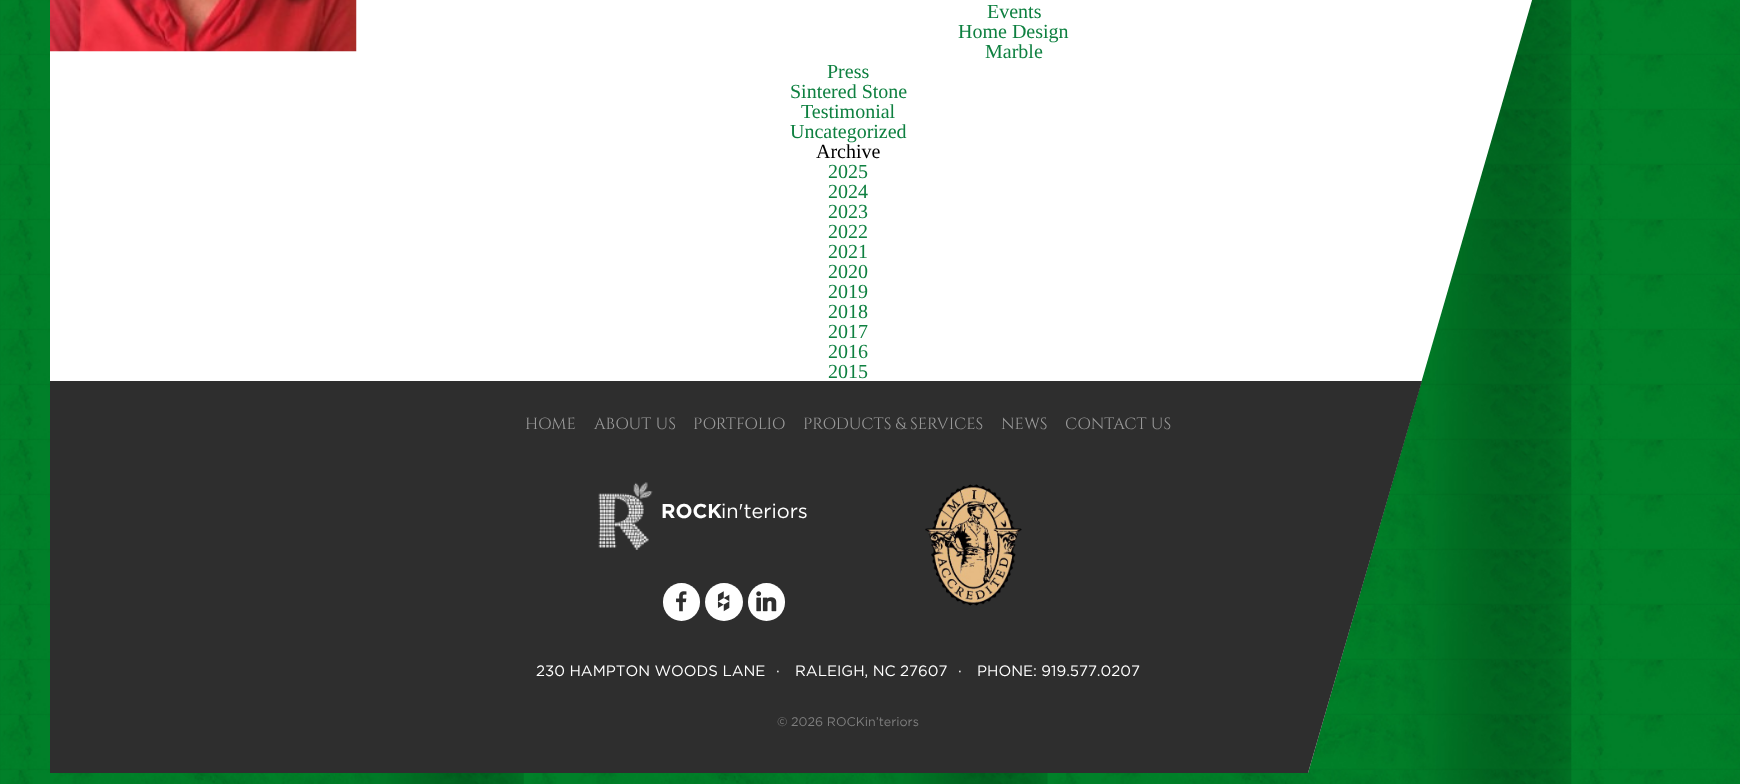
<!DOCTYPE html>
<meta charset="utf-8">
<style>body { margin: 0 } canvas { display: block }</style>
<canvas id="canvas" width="1740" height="784"></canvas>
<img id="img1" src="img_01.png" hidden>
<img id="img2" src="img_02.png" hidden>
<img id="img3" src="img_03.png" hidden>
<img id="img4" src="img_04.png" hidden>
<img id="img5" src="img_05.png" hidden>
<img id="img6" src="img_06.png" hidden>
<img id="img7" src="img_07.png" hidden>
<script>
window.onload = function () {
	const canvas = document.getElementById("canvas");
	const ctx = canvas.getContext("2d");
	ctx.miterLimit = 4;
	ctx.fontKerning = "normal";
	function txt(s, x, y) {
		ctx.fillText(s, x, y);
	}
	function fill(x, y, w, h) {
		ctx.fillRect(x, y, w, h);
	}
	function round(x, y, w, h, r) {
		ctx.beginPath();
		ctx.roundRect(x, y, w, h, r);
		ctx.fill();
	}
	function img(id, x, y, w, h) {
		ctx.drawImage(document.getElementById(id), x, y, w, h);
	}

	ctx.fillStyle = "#FFFFFF";
	fill(0, 0, 1740, 784);
	img("img1", 0, 0, 1740, 784);
	ctx.beginPath();
	ctx.moveTo(1646, -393);
	ctx.lineTo(1308, 773);
	ctx.lineTo(50, 773);
	ctx.lineTo(50, -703);
	ctx.lineTo(292, -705);
	ctx.lineTo(1646, -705);
	ctx.closePath();
	ctx.fill();
	img("img2", 50, 0, 307, 52);
	ctx.fillStyle = "#2E2E2E";
	ctx.beginPath();
	ctx.moveTo(50, 381);
	ctx.lineTo(1422, 381);
	ctx.lineTo(1308, 773);
	ctx.lineTo(50, 773);
	ctx.closePath();
	ctx.fill();
	img("img3", 598, 482, 55, 68);
	ctx.fillStyle = "#FFFFFF";
	round(663, 583, 37, 38, 18.5);
	img("img4", 676, 591, 11, 21);
	ctx.beginPath();
	ctx.arc(724, 602, 19, 0, Math.PI * 2);
	ctx.fill();
	img("img5", 717, 591, 13, 21);
	round(748, 583, 37, 38, 18.5);
	img("img6", 756, 591, 21, 21);
	img("img7", 925, 484, 97, 122);
	ctx.font = "20px Liberation Serif";
	ctx.fillStyle = "#0E8040";
	txt("Events", 987, 18);
	txt("Home Design", 958, 38);
	txt("Marble", 985, 58);
	txt("Press", 827, 78);
	txt("Sintered Stone", 790, 98);
	txt("Testimonial", 801, 118);
	txt("Uncategorized", 790, 138);
	ctx.fillStyle = "#000000";
	txt("Archive", 816, 158);
	ctx.fillStyle = "#0E8040";
	txt("2025", 828, 178);
	txt("2024", 828, 198);
	txt("2023", 828, 218);
	txt("2022", 828, 238);
	txt("2021", 828, 258);
	txt("2020", 828, 278);
	txt("2019", 828, 298);
	txt("2018", 828, 318);
	txt("2017", 828, 338);
	txt("2016", 828, 358);
	txt("2015", 828, 378);
	ctx.font = "16.25px Cinzel";
	ctx.fillStyle = "#999999";
	txt("HOME", 525, 429);
	txt("ABOUT US", 594, 429);
	txt("PORTFOLIO", 693, 429);
	txt("PRODUCTS & SERVICES", 803, 429);
	txt("NEWS", 1001, 429);
	txt("CONTACT US", 1065, 429);
	ctx.font = "bold 20px Gotham";
	ctx.fillStyle = "#FFFFFF";
	txt("ROCK", 661, 518);
	ctx.font = "20px Gotham";
	txt("in'teriors", 721, 518);
	ctx.font = "15px Gotham";
	txt("230 HAMPTON WOODS LANE", 536, 676);
	txt("·", 776, 676);
	txt("RALEIGH, NC 27607", 795, 676);
	txt("·", 958, 676);
	txt("PHONE: 919.577.0207", 977, 676);
	ctx.font = "12.5px Gotham";
	ctx.fillStyle = "#7F7F7F";
	txt("© 2026 ROCKin’teriors", 777, 726);
};
</script>
